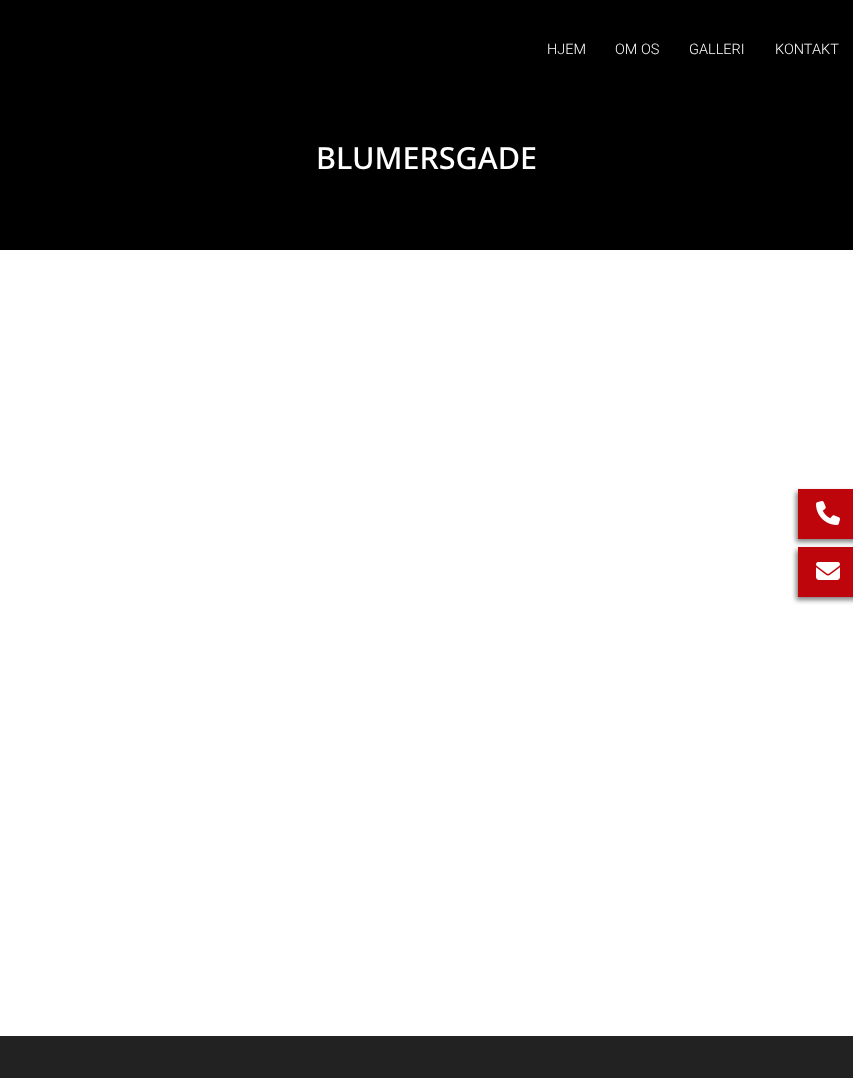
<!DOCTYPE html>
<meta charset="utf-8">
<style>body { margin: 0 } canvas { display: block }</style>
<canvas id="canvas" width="853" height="1078"></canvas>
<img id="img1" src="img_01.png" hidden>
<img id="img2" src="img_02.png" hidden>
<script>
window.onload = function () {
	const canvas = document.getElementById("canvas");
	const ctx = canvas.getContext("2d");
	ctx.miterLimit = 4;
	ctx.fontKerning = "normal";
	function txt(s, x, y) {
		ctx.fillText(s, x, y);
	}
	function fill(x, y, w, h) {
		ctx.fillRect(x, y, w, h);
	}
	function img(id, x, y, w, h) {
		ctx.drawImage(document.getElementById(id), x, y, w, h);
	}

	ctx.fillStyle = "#FFFFFF";
	fill(0, 0, 853, 1078);
	ctx.fillStyle = "#000000";
	fill(0, 0, 853, 250);
	ctx.fillStyle = "rgba(0, 0, 0, 0.5)";
	ctx.filter = "blur(2.5px)";
	ctx.beginPath();
	ctx.rect(796, 492, 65, 50);
	ctx.fill();
	ctx.filter = "none";
	ctx.fillStyle = "#BE050B";
	fill(798, 489, 55, 50);
	img("img1", 816, 501, 24, 24);
	ctx.fillStyle = "rgba(0, 0, 0, 0.5)";
	ctx.filter = "blur(2.5px)";
	ctx.beginPath();
	ctx.rect(796, 550, 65, 50);
	ctx.fill();
	ctx.filter = "none";
	ctx.fillStyle = "#BE050B";
	fill(798, 547, 55, 50);
	img("img2", 816, 562, 24, 18);
	ctx.fillStyle = "#222222";
	fill(0, 1036, 853, 42);
	ctx.font = "300 14.5px Roboto";
	ctx.fillStyle = "#FFFFFF";
	txt("HJEM", 547, 54);
	txt("OM OS", 615, 54);
	txt("GALLERI", 689, 54);
	txt("KONTAKT", 775, 54);
	ctx.font = "500 30.5px Noto Sans";
	txt("BLUMERSGADE", 316, 169);
};
</script>
